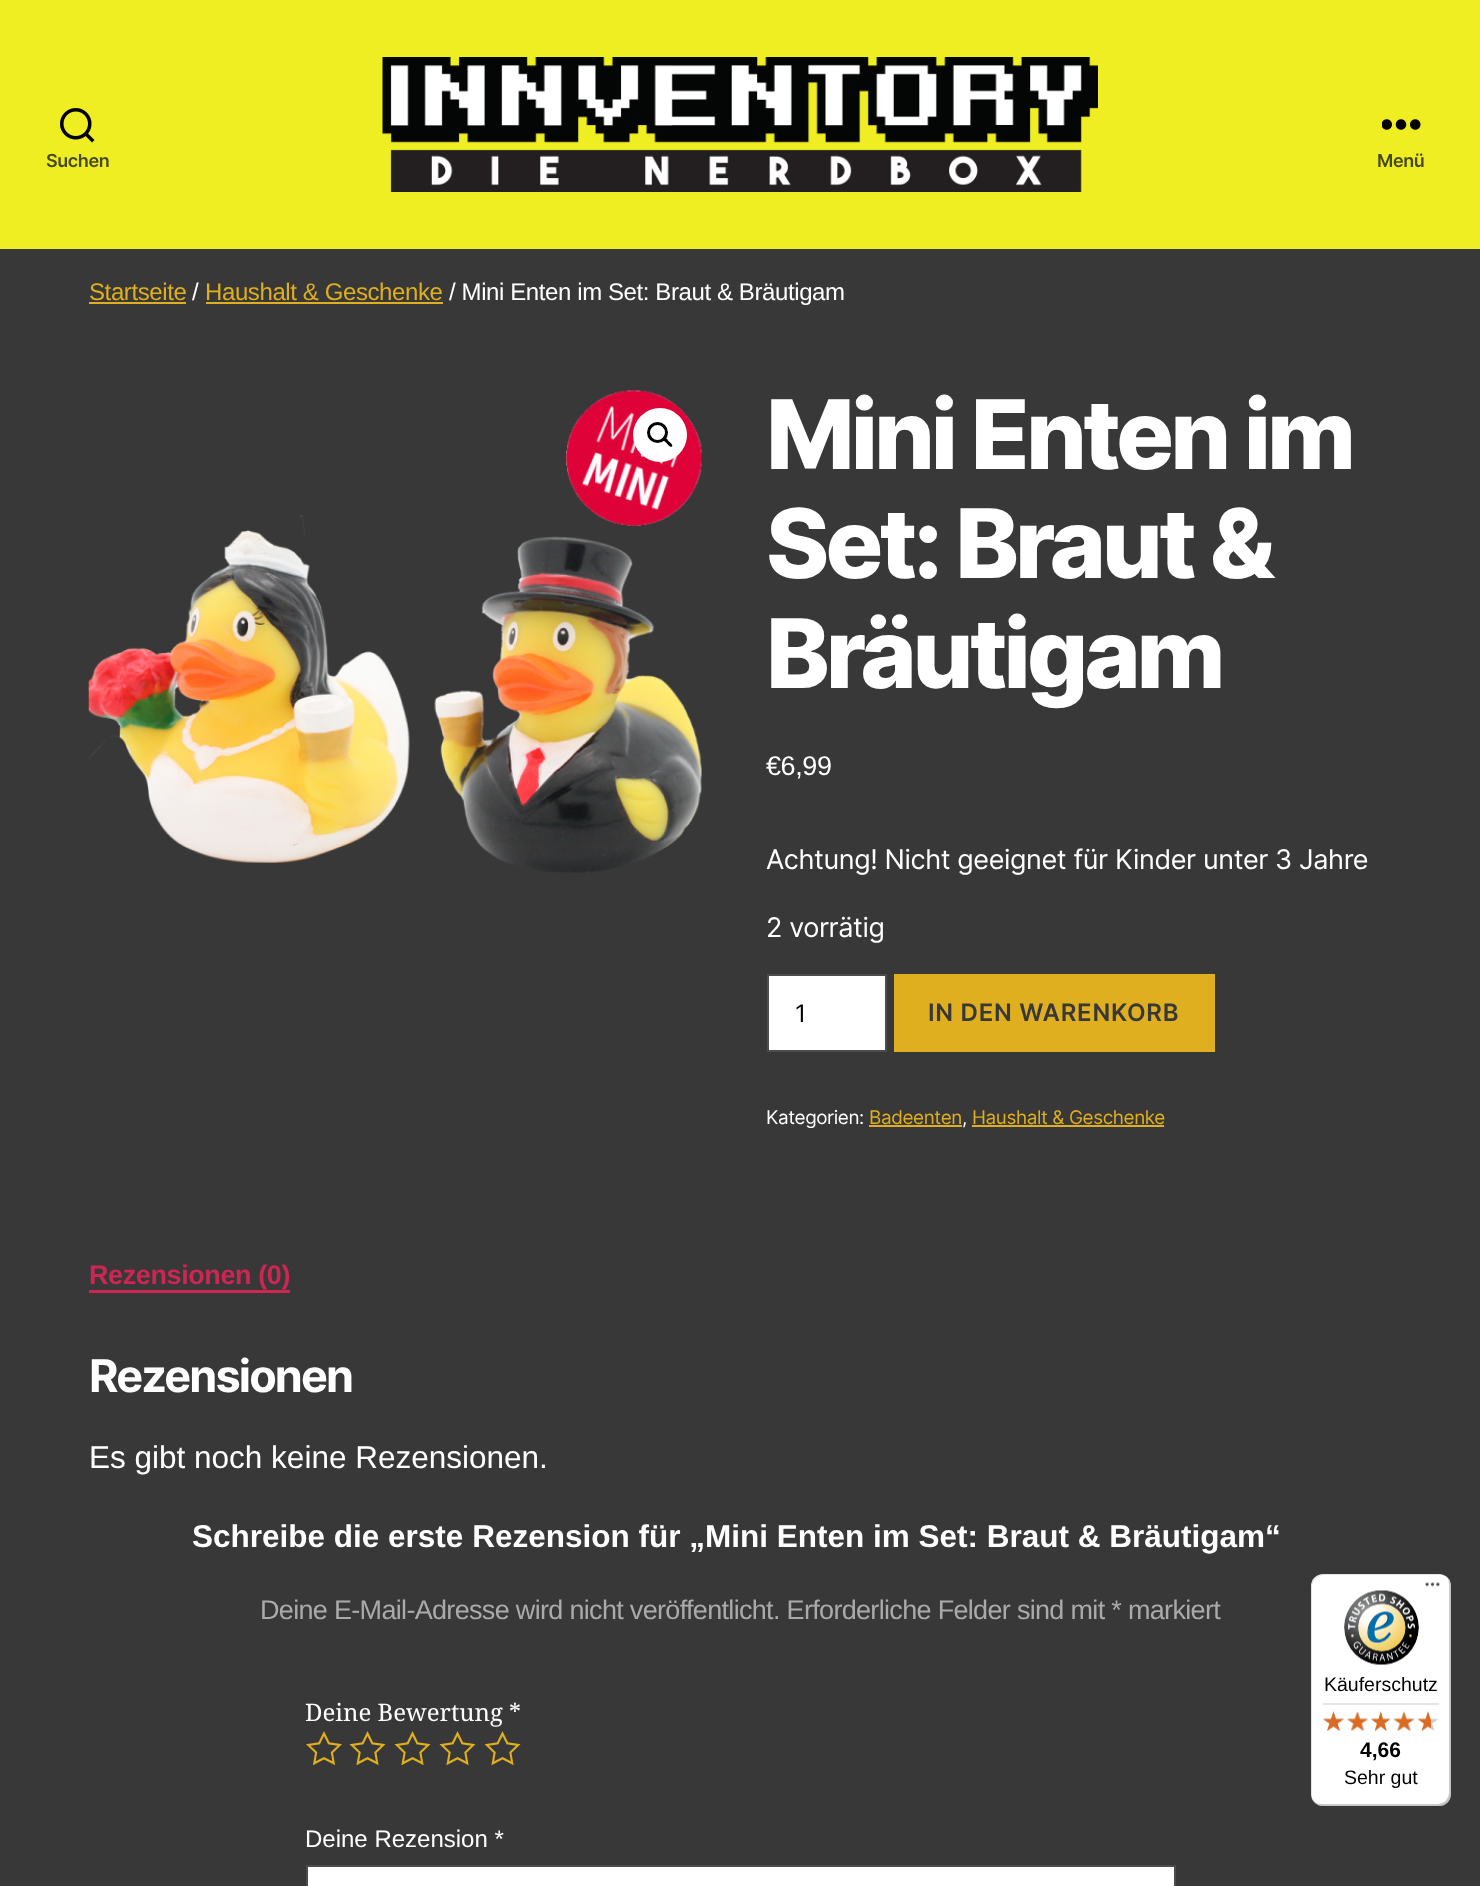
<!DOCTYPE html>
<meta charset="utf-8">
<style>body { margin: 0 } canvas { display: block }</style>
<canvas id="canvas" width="1480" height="1886"></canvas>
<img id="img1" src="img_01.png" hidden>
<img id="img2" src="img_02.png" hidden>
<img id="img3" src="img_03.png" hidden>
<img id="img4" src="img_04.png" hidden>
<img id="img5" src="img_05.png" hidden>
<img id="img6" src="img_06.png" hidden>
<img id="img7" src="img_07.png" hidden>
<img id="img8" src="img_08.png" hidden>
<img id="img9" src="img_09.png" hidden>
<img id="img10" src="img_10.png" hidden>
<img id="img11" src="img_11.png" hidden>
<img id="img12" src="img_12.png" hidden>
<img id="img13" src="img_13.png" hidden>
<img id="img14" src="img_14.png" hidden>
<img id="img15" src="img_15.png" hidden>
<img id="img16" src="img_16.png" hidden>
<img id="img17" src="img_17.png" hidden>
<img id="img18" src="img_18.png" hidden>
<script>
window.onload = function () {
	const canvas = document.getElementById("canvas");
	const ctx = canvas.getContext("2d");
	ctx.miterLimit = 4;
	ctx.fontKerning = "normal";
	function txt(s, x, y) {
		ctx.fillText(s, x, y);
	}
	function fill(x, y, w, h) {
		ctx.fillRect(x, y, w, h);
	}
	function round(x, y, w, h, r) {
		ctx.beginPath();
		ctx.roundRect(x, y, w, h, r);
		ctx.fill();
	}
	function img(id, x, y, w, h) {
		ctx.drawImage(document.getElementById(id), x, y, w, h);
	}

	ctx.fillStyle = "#383838";
	fill(0, 0, 1480, 1886);
	ctx.fillStyle = "#EEEE22";
	fill(0, 0, 1480, 249);
	img("img1", 60, 108, 35, 35);
	img("img2", 382, 57, 716, 135);
	img("img3", 1382, 119, 39, 11);
	ctx.fillStyle = "#DFAF1F";
	fill(89, 302, 97, 2);
	fill(206, 302, 237, 2);
	img("img4", 88, 390, 614, 483);
	ctx.fillStyle = "#FFFFFF";
	ctx.beginPath();
	ctx.arc(660, 435, 27, 0, Math.PI * 2);
	ctx.fill();
	ctx.beginPath();
	ctx.arc(657.5, 432.5, 9, 0, Math.PI * 2);
	ctx.strokeStyle = "#000000";
	ctx.lineWidth = 3;
	ctx.stroke();
	ctx.fillStyle = "#000000";
	ctx.beginPath();
	ctx.moveTo(663.5, 438);
	ctx.bezierCurveTo(665, 436, 668, 440, 668.5, 441);
	ctx.bezierCurveTo(669.5, 442, 673.5, 444.5, 672, 446.5);
	ctx.bezierCurveTo(670, 448, 667.5, 444, 666.5, 443);
	ctx.bezierCurveTo(665.5, 442, 661.5, 439.5, 663.5, 438);
	ctx.closePath();
	ctx.fill();
	ctx.fillStyle = "#FFFFFF";
	ctx.beginPath();
	ctx.rect(768, 975, 118, 76);
	ctx.fill();
	ctx.strokeStyle = "#4C4C4C";
	ctx.lineWidth = 2;
	ctx.stroke();
	ctx.fillStyle = "#DFAF1F";
	fill(894, 974, 321, 78);
	fill(869, 1125, 93, 2);
	fill(972, 1125, 192, 2);
	ctx.fillStyle = "#CD2653";
	ctx.beginPath();
	ctx.moveTo(89, 1290);
	ctx.lineTo(89, 1293);
	ctx.lineTo(290, 1293);
	ctx.lineTo(290, 1263);
	ctx.lineTo(290, 1290);
	ctx.closePath();
	ctx.fill();
	img("img5", 306, 1731, 36, 35);
	img("img6", 349, 1731, 37, 35);
	img("img6", 394, 1731, 37, 35);
	img("img6", 439, 1731, 37, 35);
	img("img6", 484, 1731, 37, 35);
	ctx.fillStyle = "#FFFFFF";
	ctx.beginPath();
	ctx.rect(307, 1866, 868, 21);
	ctx.fill();
	ctx.stroke();
	round(1311, 1574, 140, 232, 12);
	ctx.fillStyle = "rgba(0, 0, 0, 0.1)";
	ctx.beginPath();
	ctx.moveTo(1324, 1575);
	ctx.lineTo(1440, 1575);
	ctx.bezierCurveTo(1443, 1575, 1445, 1576, 1447, 1577);
	ctx.bezierCurveTo(1445, 1575, 1442, 1574, 1439, 1574);
	ctx.lineTo(1323, 1574);
	ctx.bezierCurveTo(1316, 1574, 1311, 1579, 1311, 1586);
	ctx.lineTo(1311, 1794);
	ctx.bezierCurveTo(1311, 1797, 1312, 1799, 1314, 1801);
	ctx.bezierCurveTo(1313, 1800, 1312, 1798, 1312, 1796);
	ctx.lineTo(1312, 1587);
	ctx.bezierCurveTo(1312, 1580, 1318, 1575, 1324, 1575);
	ctx.closePath();
	ctx.fill();
	ctx.fillStyle = "rgba(0, 0, 0, 0.2)";
	ctx.beginPath();
	ctx.moveTo(1312, 1799);
	ctx.bezierCurveTo(1314, 1803, 1318, 1806, 1323, 1806);
	ctx.lineTo(1439, 1806);
	ctx.bezierCurveTo(1446, 1806, 1451, 1801, 1451, 1794);
	ctx.lineTo(1451, 1586);
	ctx.bezierCurveTo(1451, 1582, 1449, 1579, 1447, 1577);
	ctx.bezierCurveTo(1448, 1579, 1449, 1581, 1449, 1584);
	ctx.lineTo(1449, 1792);
	ctx.bezierCurveTo(1449, 1799, 1444, 1804, 1437, 1804);
	ctx.lineTo(1322, 1804);
	ctx.bezierCurveTo(1318, 1804, 1314, 1802, 1312, 1799);
	ctx.closePath();
	ctx.fill();
	ctx.fillStyle = "rgba(50, 50, 50, 0.2)";
	ctx.beginPath();
	ctx.moveTo(1315, 1803);
	ctx.bezierCurveTo(1317, 1805, 1320, 1806, 1323, 1806);
	ctx.lineTo(1439, 1806);
	ctx.bezierCurveTo(1446, 1806, 1451, 1801, 1451, 1794);
	ctx.lineTo(1451, 1586);
	ctx.bezierCurveTo(1451, 1582, 1449, 1579, 1447, 1577);
	ctx.bezierCurveTo(1449, 1579, 1450, 1582, 1450, 1585);
	ctx.lineTo(1450, 1793);
	ctx.bezierCurveTo(1450, 1800, 1444, 1805, 1438, 1805);
	ctx.lineTo(1322, 1805);
	ctx.bezierCurveTo(1319, 1805, 1317, 1804, 1315, 1803);
	ctx.closePath();
	ctx.fill();
	ctx.fillStyle = "rgba(255, 255, 255, 0.3)";
	ctx.beginPath();
	ctx.moveTo(1314, 1802);
	ctx.bezierCurveTo(1316, 1804, 1319, 1806, 1323, 1806);
	ctx.lineTo(1439, 1806);
	ctx.bezierCurveTo(1446, 1806, 1451, 1801, 1451, 1794);
	ctx.lineTo(1451, 1586);
	ctx.bezierCurveTo(1451, 1582, 1449, 1579, 1447, 1577);
	ctx.bezierCurveTo(1449, 1579, 1450, 1582, 1450, 1585);
	ctx.lineTo(1450, 1793);
	ctx.bezierCurveTo(1450, 1800, 1444, 1805, 1438, 1805);
	ctx.lineTo(1322, 1805);
	ctx.bezierCurveTo(1319, 1805, 1316, 1804, 1314, 1802);
	ctx.closePath();
	ctx.fill();
	img("img7", 1425, 1582, 15, 5);
	img("img8", 1344, 1590, 75, 75);
	ctx.fillStyle = "#E5E5E5";
	fill(1323, 1703, 116, 2);
	img("img9", 1323, 1711, 21, 20);
	img("img10", 1347, 1712, 21, 19);
	img("img11", 1371, 1711, 19, 20);
	img("img12", 1394, 1712, 20, 19);
	img("img13", 1418, 1711, 20, 20);
	img("img14", 1323, 1711, 21, 20);
	img("img15", 1347, 1711, 21, 20);
	img("img16", 1371, 1711, 19, 20);
	img("img17", 1393, 1711, 22, 20);
	img("img18", 1418, 1711, 13, 20);
	ctx.letterSpacing = "-0.4px";
	ctx.font = "600 18px Inter";
	ctx.fillStyle = "#48481D";
	txt("Suchen", 46, 167);
	txt("Menü", 1377, 167);
	ctx.font = "24px Liberation Sans";
	ctx.fillStyle = "#DFAF1F";
	txt("Startseite", 89, 300);
	ctx.fillStyle = "#FFFFFF";
	txt("/", 192, 300);
	ctx.fillStyle = "#DFAF1F";
	txt("Haushalt & Geschenke", 205, 300);
	ctx.fillStyle = "#FFFFFF";
	txt("/ Mini Enten im Set: Braut & Bräutigam", 449, 300);
	ctx.letterSpacing = "-4px";
	ctx.font = "800 96px Inter";
	txt("Mini Enten im", 766, 469);
	txt("Set: Braut &", 766, 578);
	txt("Bräutigam", 766, 688);
	ctx.letterSpacing = "-0.4px";
	ctx.font = "27px Liberation Sans";
	txt("€6,99", 766, 775);
	ctx.font = "27px Inter";
	txt("Achtung! Nicht geeignet für Kinder unter 3 Jahre", 766, 869);
	txt("2 vorrätig", 766, 937);
	ctx.letterSpacing = "0px";
	ctx.font = "24px Inter";
	ctx.fillStyle = "#000000";
	txt("1", 795, 1022);
	ctx.letterSpacing = "0.75px";
	ctx.font = "600 24px Inter";
	ctx.fillStyle = "#383838";
	txt("IN DEN WARENKORB", 928, 1021);
	ctx.letterSpacing = "-0.4px";
	ctx.font = "18.9px Inter";
	ctx.fillStyle = "#FFFFFF";
	txt("Kategorien:", 766, 1124);
	ctx.fillStyle = "#DFAF1F";
	txt("Badeenten", 869, 1124);
	ctx.fillStyle = "#FFFFFF";
	txt(",", 962, 1124);
	ctx.fillStyle = "#DFAF1F";
	txt("Haushalt & Geschenke", 972, 1124);
	ctx.font = "bold 27px Liberation Sans";
	ctx.fillStyle = "#CD2653";
	txt("Rezensionen (0)", 89, 1284);
	ctx.letterSpacing = "-1.9px";
	ctx.font = "bold 45px Inter";
	ctx.fillStyle = "#FFFFFF";
	txt("Rezensionen", 89, 1392);
	ctx.letterSpacing = "0px";
	ctx.font = "31.5px Liberation Sans";
	txt("Es gibt noch keine Rezensionen.", 89, 1468);
	ctx.font = "bold 31.5px Liberation Sans";
	txt("Schreibe die erste Rezension für „Mini Enten im Set: Braut & Bräutigam“", 192, 1547);
	ctx.letterSpacing = "-0.68px";
	ctx.font = "27px Liberation Sans";
	ctx.fillStyle = "#AAAAAA";
	txt("Deine E-Mail-Adresse wird nicht veröffentlicht. Erforderliche Felder sind mit * markiert", 260, 1619);
	ctx.letterSpacing = "0px";
	ctx.font = "24px Noto Serif";
	ctx.fillStyle = "#FFFFFF";
	txt("Deine Bewertung", 305, 1721);
	txt("*", 509, 1721);
	ctx.font = "24px Liberation Sans";
	txt("Deine Rezension *", 305, 1847);
	ctx.font = "19.5px Liberation Sans";
	ctx.fillStyle = "#000000";
	txt("Käuferschutz", 1324, 1691);
	ctx.font = "bold 21px Liberation Sans";
	txt("4,66", 1360, 1757);
	ctx.font = "19.5px Liberation Sans";
	txt("Sehr gut", 1344, 1784);
};
</script>
